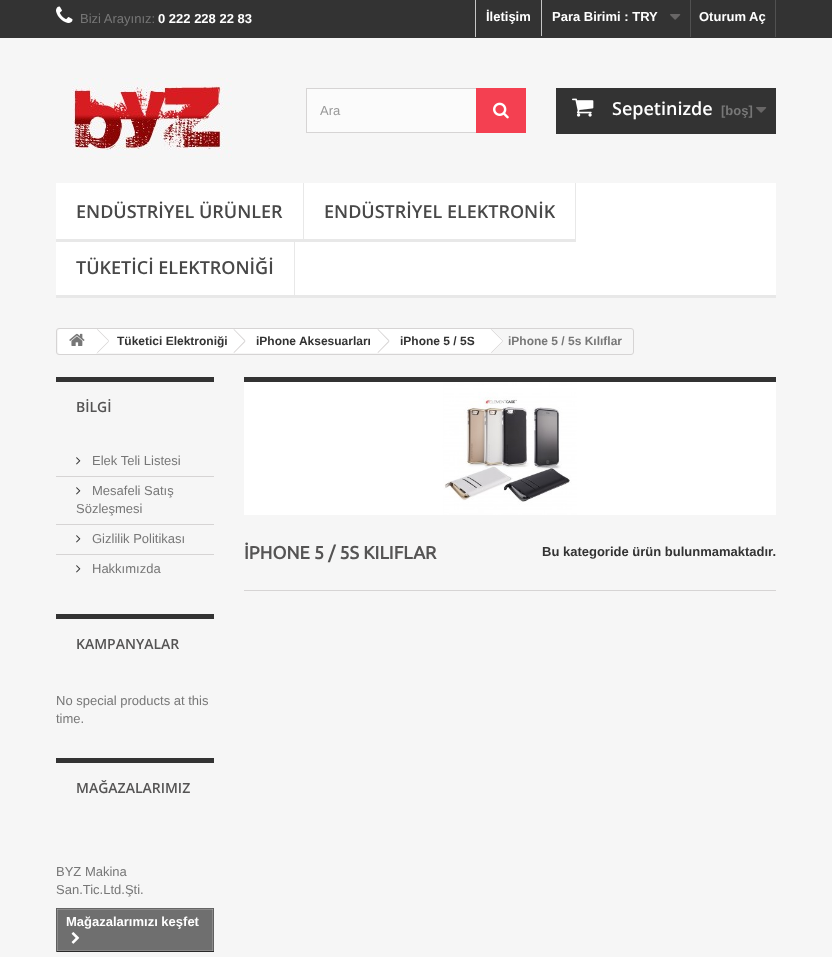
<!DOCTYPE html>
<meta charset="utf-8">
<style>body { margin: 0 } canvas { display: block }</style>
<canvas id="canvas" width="832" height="957"></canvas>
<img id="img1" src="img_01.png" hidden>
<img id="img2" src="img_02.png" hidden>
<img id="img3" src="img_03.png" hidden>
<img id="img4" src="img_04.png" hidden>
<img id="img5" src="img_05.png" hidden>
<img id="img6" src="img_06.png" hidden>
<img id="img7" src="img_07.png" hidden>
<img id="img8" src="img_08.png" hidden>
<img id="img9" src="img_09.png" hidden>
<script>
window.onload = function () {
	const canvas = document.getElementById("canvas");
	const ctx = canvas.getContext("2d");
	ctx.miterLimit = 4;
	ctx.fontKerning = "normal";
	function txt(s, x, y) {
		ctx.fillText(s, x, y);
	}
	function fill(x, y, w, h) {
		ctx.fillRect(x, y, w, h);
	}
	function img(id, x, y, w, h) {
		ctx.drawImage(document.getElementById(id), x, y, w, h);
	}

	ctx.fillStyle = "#F6F6F6";
	fill(0, 0, 832, 957);
	ctx.fillStyle = "#333333";
	fill(0, 0, 832, 38);
	img("img1", 56, 6, 17, 17);
	ctx.fillStyle = "#C6C6C6";
	fill(475, 0, 1, 37);
	fill(541, 0, 1, 36);
	img("img2", 670, 14, 11, 6);
	ctx.fillStyle = "#515151";
	fill(775, 0, 1, 37);
	fill(690, 0, 1, 37);
	img("img3", 72, 78, 160, 80);
	ctx.fillStyle = "#FBFBFB";
	fill(307, 89, 169, 43);
	ctx.strokeStyle = "#D6D4D4";
	ctx.strokeRect(306.5, 88.5, 219, 44);
	ctx.fillStyle = "#F44051";
	fill(476, 88, 50, 45);
	img("img4", 493, 102, 16, 17);
	ctx.fillStyle = "#333333";
	fill(556, 88, 220, 46);
	img("img5", 572, 98, 22, 19);
	img("img2", 756, 107, 11, 6);
	ctx.fillStyle = "#FFFFFF";
	fill(56, 183, 720, 112);
	ctx.fillStyle = "#E8E8E8";
	fill(56, 295, 720, 3);
	fill(303, 183, 1, 59);
	fill(56, 239, 247, 3);
	fill(575, 183, 1, 59);
	fill(304, 239, 271, 3);
	fill(294, 239, 1, 59);
	ctx.beginPath();
	ctx.roundRect(56.5, 328.5, 577, 26, 2.5);
	ctx.stroke();
	ctx.fillStyle = "#FFFFFF";
	ctx.beginPath();
	ctx.roundRect(58, 329, 38, 25, [3, 0, 0, 3]);
	ctx.fill();
	img("img6", 69, 333, 16, 13);
	fill(96, 329, 138, 24);
	ctx.fillStyle = "#D6D4D4";
	ctx.beginPath();
	ctx.moveTo(97.5, 329);
	ctx.lineTo(109, 340.5);
	ctx.lineTo(108.5, 341);
	ctx.lineTo(97, 329.5);
	ctx.closePath();
	ctx.moveTo(108.5, 341);
	ctx.lineTo(109, 341.5);
	ctx.lineTo(97.5, 353);
	ctx.lineTo(97, 352.5);
	ctx.closePath();
	ctx.fill();
	ctx.fillStyle = "#FFFFFF";
	ctx.beginPath();
	ctx.moveTo(245, 329.5);
	ctx.lineTo(254.5, 339.5);
	ctx.bezierCurveTo(255.5, 340.5, 255.5, 341.5, 254.5, 342.5);
	ctx.lineTo(245, 352.5);
	ctx.bezierCurveTo(244, 353, 243, 353, 242, 352.5);
	ctx.lineTo(232, 342.5);
	ctx.bezierCurveTo(231.5, 341.5, 231.5, 340.5, 232, 339.5);
	ctx.lineTo(242, 329.5);
	ctx.bezierCurveTo(243, 329, 244, 329, 245, 329.5);
	ctx.closePath();
	ctx.fill();
	fill(234, 329, 144, 24);
	ctx.fillStyle = "#D6D4D4";
	ctx.beginPath();
	ctx.moveTo(234, 329);
	ctx.lineTo(245.5, 340.5);
	ctx.lineTo(244.5, 341);
	ctx.lineTo(233.5, 329.5);
	ctx.closePath();
	ctx.moveTo(244.5, 341);
	ctx.lineTo(245.5, 341.5);
	ctx.lineTo(234, 353);
	ctx.lineTo(233.5, 352.5);
	ctx.closePath();
	ctx.fill();
	ctx.fillStyle = "#FFFFFF";
	ctx.beginPath();
	ctx.moveTo(388.5, 329.5);
	ctx.lineTo(398.5, 339.5);
	ctx.bezierCurveTo(399.5, 340.5, 399.5, 341.5, 398.5, 342.5);
	ctx.lineTo(388.5, 352.5);
	ctx.bezierCurveTo(388, 353, 386.5, 353, 386, 352.5);
	ctx.lineTo(376, 342.5);
	ctx.bezierCurveTo(375, 341.5, 375, 340.5, 376, 339.5);
	ctx.lineTo(386, 329.5);
	ctx.bezierCurveTo(386.5, 329, 388, 329, 388.5, 329.5);
	ctx.closePath();
	ctx.fill();
	fill(378, 329, 112, 24);
	ctx.fillStyle = "#D6D4D4";
	ctx.beginPath();
	ctx.moveTo(378, 329);
	ctx.lineTo(389.5, 340.5);
	ctx.lineTo(388.5, 341);
	ctx.lineTo(377.5, 329.5);
	ctx.closePath();
	ctx.moveTo(388.5, 341);
	ctx.lineTo(389.5, 341.5);
	ctx.lineTo(378, 353);
	ctx.lineTo(377.5, 352.5);
	ctx.closePath();
	ctx.fill();
	ctx.fillStyle = "#FFFFFF";
	ctx.beginPath();
	ctx.moveTo(492.5, 329.5);
	ctx.lineTo(502.5, 339.5);
	ctx.bezierCurveTo(503, 340.5, 503, 341.5, 502.5, 342.5);
	ctx.lineTo(492.5, 352.5);
	ctx.bezierCurveTo(491.5, 353, 490.5, 353, 489.5, 352.5);
	ctx.lineTo(479.5, 342.5);
	ctx.bezierCurveTo(479, 341.5, 479, 340.5, 479.5, 339.5);
	ctx.lineTo(489.5, 329.5);
	ctx.bezierCurveTo(490.5, 329, 491.5, 329, 492.5, 329.5);
	ctx.closePath();
	ctx.fill();
	ctx.fillStyle = "#D6D4D4";
	ctx.beginPath();
	ctx.moveTo(491.5, 329);
	ctx.lineTo(503, 340.5);
	ctx.lineTo(502.5, 341);
	ctx.lineTo(491, 329.5);
	ctx.closePath();
	ctx.moveTo(502.5, 341);
	ctx.lineTo(503, 341.5);
	ctx.lineTo(491.5, 353);
	ctx.lineTo(491, 352.5);
	ctx.closePath();
	ctx.fill();
	ctx.fillStyle = "#333333";
	fill(56, 377, 158, 5);
	img("img7", 76, 457, 5, 8);
	ctx.fillStyle = "#D6D4D4";
	fill(56, 476, 158, 1);
	img("img7", 76, 487, 5, 8);
	fill(56, 524, 158, 1);
	img("img7", 76, 535, 5, 8);
	fill(56, 554, 158, 1);
	img("img7", 76, 565, 5, 8);
	ctx.fillStyle = "#333333";
	fill(56, 614, 158, 5);
	fill(56, 758, 158, 5);
	ctx.fillStyle = "#666666";
	fill(56, 908, 158, 1);
	ctx.fillStyle = "#5F5F5F";
	fill(213, 908, 1, 44);
	ctx.fillStyle = "#292929";
	fill(56, 951, 158, 1);
	ctx.fillStyle = "#5F5F5F";
	fill(56, 908, 1, 44);
	ctx.fillStyle = "#6F6F6F";
	ctx.beginPath();
	ctx.rect(57.5, 909.5, 155, 41);
	ctx.fill();
	ctx.strokeStyle = "#8B8A8A";
	ctx.stroke();
	img("img8", 71, 932, 9, 12);
	ctx.fillStyle = "#333333";
	fill(244, 377, 532, 5);
	img("img9", 244, 382, 532, 133);
	ctx.fillStyle = "#D6D4D4";
	fill(244, 590, 532, 1);
	ctx.font = "13px Liberation Sans";
	ctx.fillStyle = "#777777";
	txt("Bizi Arayınız:", 80, 23);
	ctx.font = "bold 13px Liberation Sans";
	ctx.fillStyle = "#FFFFFF";
	txt("0 222 228 22 83", 158, 23);
	txt("İletişim", 486, 21);
	txt("Para Birimi : TRY", 552, 21);
	txt("Oturum Aç", 699, 21);
	ctx.font = "13px Liberation Sans";
	ctx.fillStyle = "#999999";
	txt("Ara", 320, 115);
	ctx.font = "600 18px Open Sans";
	ctx.fillStyle = "#FFFFFF";
	txt("Sepetinizde", 612, 115);
	ctx.font = "bold 13px Liberation Sans";
	ctx.fillStyle = "#777777";
	txt("[boş]", 721, 115);
	ctx.font = "600 18px Open Sans";
	ctx.fillStyle = "#484848";
	txt("ENDÜSTRİYEL ÜRÜNLER", 76, 218);
	txt("ENDÜSTRİYEL ELEKTRONİK", 324, 218);
	txt("TÜKETİCİ ELEKTRONİĞİ", 76, 274);
	ctx.font = "bold 12px Liberation Sans";
	ctx.fillStyle = "#333333";
	txt("Tüketici Elektroniği", 117, 345);
	txt("iPhone Aksesuarları", 256, 345);
	txt("iPhone 5 / 5S", 400, 345);
	ctx.fillStyle = "#777777";
	txt("iPhone 5 / 5s Kılıflar", 508, 345);
	ctx.font = "600 14px Open Sans";
	ctx.fillStyle = "#555454";
	txt("BİLGİ", 76, 412);
	ctx.font = "13px Liberation Sans";
	ctx.fillStyle = "#777777";
	txt("Elek Teli Listesi", 92, 465);
	txt("Mesafeli Satış", 92, 495);
	txt("Sözleşmesi", 76, 513);
	txt("Gizlilik Politikası", 92, 543);
	txt("Hakkımızda", 92, 573);
	ctx.font = "600 14px Open Sans";
	ctx.fillStyle = "#555454";
	txt("KAMPANYALAR", 76, 649);
	ctx.font = "13px Liberation Sans";
	ctx.fillStyle = "#777777";
	txt("No special products at this", 56, 705);
	txt("time.", 56, 723);
	ctx.font = "600 14px Open Sans";
	ctx.fillStyle = "#555454";
	txt("MAĞAZALARIMIZ", 76, 793);
	ctx.font = "13px Liberation Sans";
	ctx.fillStyle = "#777777";
	txt("BYZ Makina", 56, 876);
	txt("San.Tic.Ltd.Şti.", 56, 894);
	ctx.font = "bold 13px Liberation Sans";
	ctx.fillStyle = "#FFFFFF";
	txt("Mağazalarımızı keşfet", 66, 926);
	ctx.font = "bold 18px Ubuntu";
	ctx.fillStyle = "#555454";
	txt("İPHONE 5 / 5S KILIFLAR", 244, 559);
	ctx.font = "bold 13px Liberation Sans";
	ctx.fillStyle = "#333333";
	txt("Bu kategoride ürün bulunmamaktadır.", 542, 556);
};
</script>
